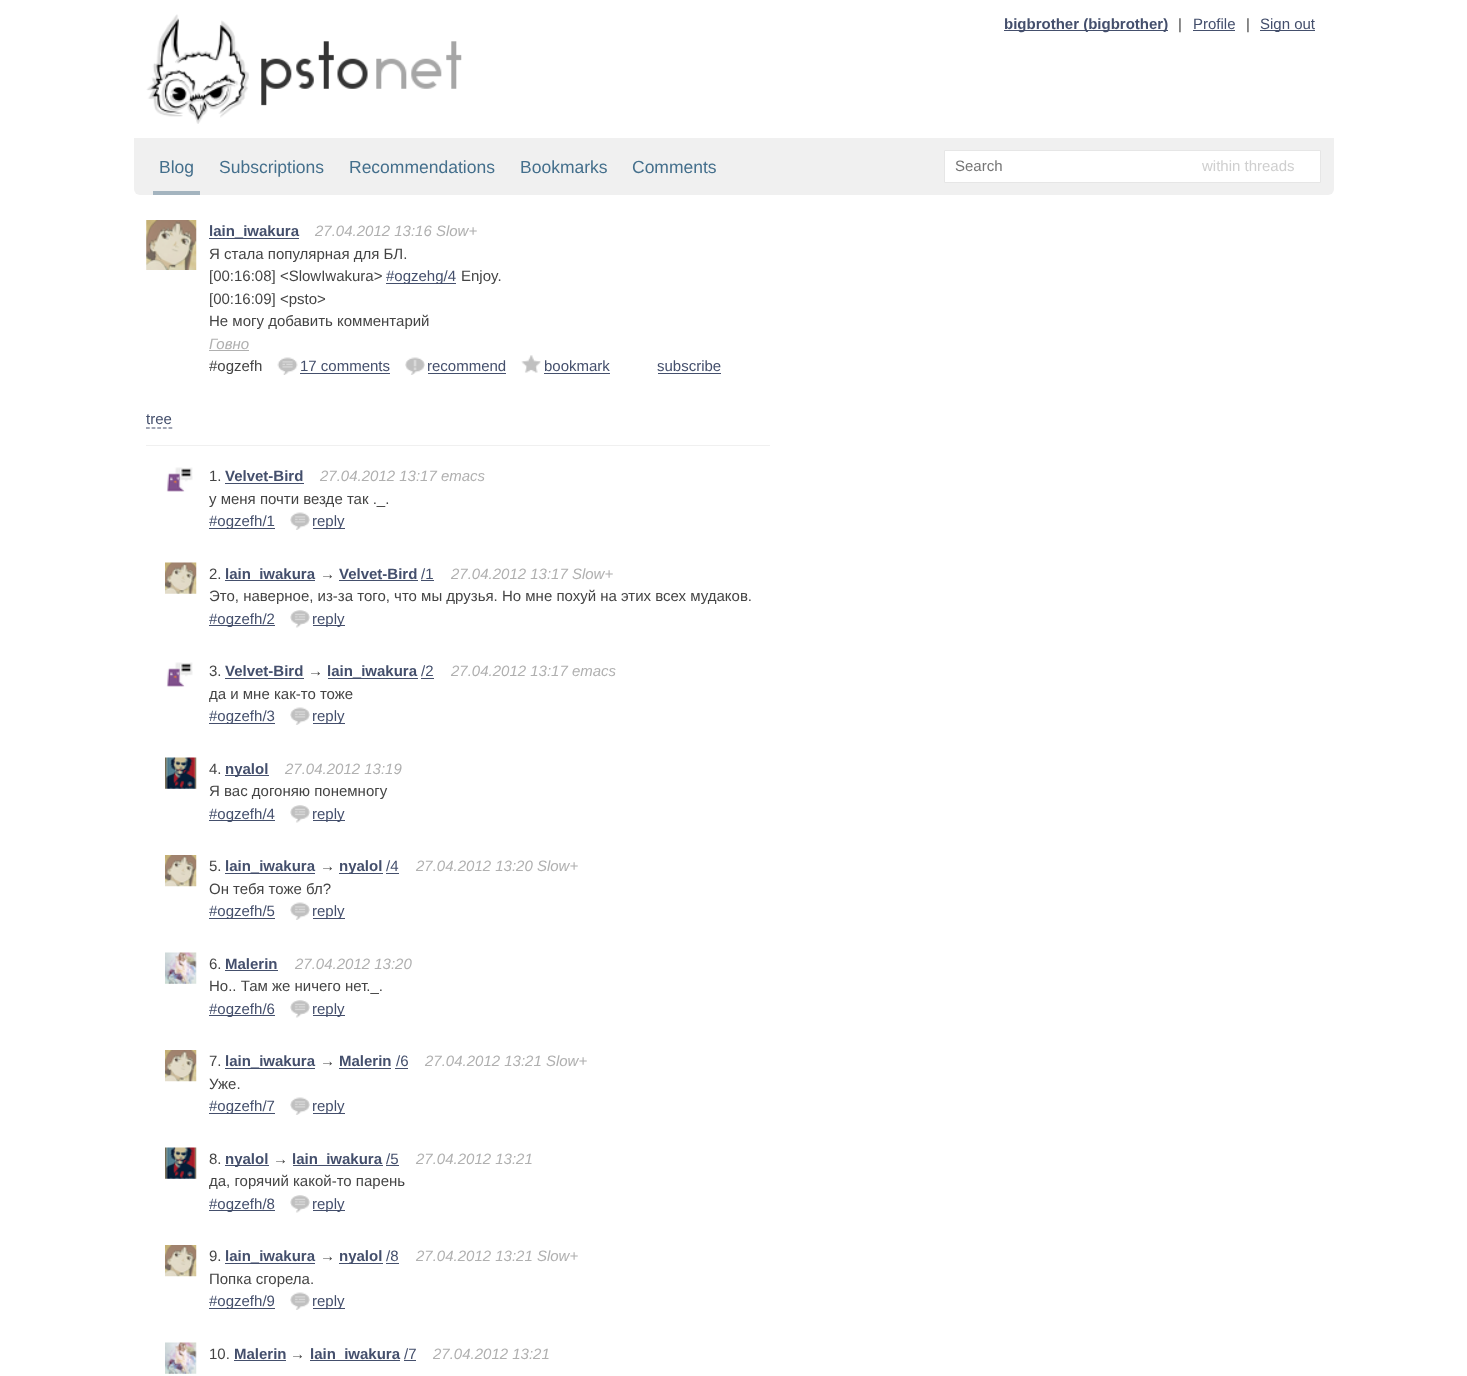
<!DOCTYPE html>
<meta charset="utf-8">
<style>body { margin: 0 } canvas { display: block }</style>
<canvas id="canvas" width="1467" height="1376"></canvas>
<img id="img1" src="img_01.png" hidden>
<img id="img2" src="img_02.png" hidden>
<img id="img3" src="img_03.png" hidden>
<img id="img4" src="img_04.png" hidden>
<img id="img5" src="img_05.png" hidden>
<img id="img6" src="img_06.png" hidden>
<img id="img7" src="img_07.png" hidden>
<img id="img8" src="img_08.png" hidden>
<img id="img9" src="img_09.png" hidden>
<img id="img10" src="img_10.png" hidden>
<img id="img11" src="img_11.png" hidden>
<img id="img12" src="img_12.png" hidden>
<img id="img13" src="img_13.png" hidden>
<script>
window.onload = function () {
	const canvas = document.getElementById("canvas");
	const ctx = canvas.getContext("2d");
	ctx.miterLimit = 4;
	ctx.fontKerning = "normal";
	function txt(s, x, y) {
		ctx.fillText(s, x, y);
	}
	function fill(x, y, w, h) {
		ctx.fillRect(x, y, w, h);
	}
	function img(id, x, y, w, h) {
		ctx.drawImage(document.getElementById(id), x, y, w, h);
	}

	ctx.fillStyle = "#FFFFFF";
	fill(0, 0, 1467, 1376);
	img("img1", 146, 14, 316, 110);
	ctx.fillStyle = "#444F6C";
	fill(1004, 30, 164, 1);
	fill(1193, 30, 42, 1);
	fill(1260, 30, 55, 1);
	ctx.fillStyle = "#F0F0F0";
	ctx.beginPath();
	ctx.roundRect(134, 138, 1200, 57, [0, 0, 6, 6]);
	ctx.fill();
	ctx.fillStyle = "#A4B4BF";
	fill(153, 191, 47, 4);
	ctx.fillStyle = "#FFFFFF";
	ctx.beginPath();
	ctx.rect(944.5, 150.5, 376, 32);
	ctx.fill();
	ctx.strokeStyle = "#E6E6E6";
	ctx.stroke();
	img("img2", 146, 220, 51, 50);
	ctx.fillStyle = "#444F6C";
	fill(209, 238, 90, 1);
	fill(386, 283, 70, 1);
	ctx.fillStyle = "#B0B0B0";
	fill(209, 350, 40, 1);
	img("img3", 277, 357, 21, 18);
	ctx.fillStyle = "#444F6C";
	fill(300, 373, 90, 1);
	img("img4", 405, 357, 20, 18);
	fill(428, 373, 78, 1);
	img("img5", 521, 355, 20, 18);
	fill(544, 373, 66, 1);
	fill(658, 373, 63, 1);
	ctx.beginPath();
	ctx.moveTo(146, 428);
	ctx.lineTo(172.5, 428);
	ctx.strokeStyle = "#444F6C";
	ctx.lineWidth = 1.2;
	ctx.setLineDash([3.75, 1.88]);
	ctx.stroke();
	ctx.fillStyle = "#F0F0F0";
	fill(146, 445, 624, 1);
	img("img6", 166, 467, 27, 25);
	ctx.fillStyle = "#444F6C";
	fill(225, 483, 79, 1);
	fill(209, 528, 66, 1);
	img("img7", 290, 512, 20, 18);
	fill(313, 528, 32, 1);
	img("img8", 165, 562, 32, 32);
	fill(225, 580, 90, 1);
	fill(339, 580, 79, 1);
	fill(421, 580, 13, 1);
	fill(209, 625, 66, 1);
	img("img9", 290, 610, 20, 18);
	fill(313, 625, 32, 1);
	img("img6", 166, 662, 27, 25);
	fill(225, 678, 79, 1);
	fill(328, 678, 90, 1);
	fill(421, 678, 13, 1);
	fill(209, 723, 66, 1);
	img("img7", 290, 707, 20, 18);
	fill(313, 723, 32, 1);
	img("img10", 165, 757, 32, 32);
	fill(225, 775, 44, 1);
	fill(209, 820, 66, 1);
	img("img9", 290, 805, 20, 18);
	fill(313, 820, 32, 1);
	img("img11", 165, 855, 32, 32);
	fill(225, 873, 90, 1);
	fill(339, 873, 44, 1);
	fill(386, 873, 13, 1);
	fill(209, 918, 66, 1);
	img("img7", 290, 902, 20, 18);
	fill(313, 918, 32, 1);
	img("img12", 165, 952, 32, 32);
	fill(225, 970, 53, 1);
	fill(209, 1015, 66, 1);
	img("img9", 290, 1000, 20, 18);
	fill(313, 1015, 32, 1);
	img("img11", 165, 1050, 32, 32);
	fill(225, 1068, 90, 1);
	fill(339, 1068, 52, 1);
	fill(395, 1068, 13, 1);
	fill(209, 1113, 66, 1);
	img("img7", 290, 1097, 20, 18);
	fill(313, 1113, 32, 1);
	img("img13", 165, 1147, 32, 32);
	fill(225, 1165, 44, 1);
	fill(293, 1165, 90, 1);
	fill(386, 1165, 13, 1);
	fill(209, 1210, 66, 1);
	img("img9", 290, 1195, 20, 18);
	fill(313, 1210, 32, 1);
	img("img11", 165, 1245, 32, 32);
	fill(225, 1263, 90, 1);
	fill(339, 1263, 44, 1);
	fill(386, 1263, 13, 1);
	fill(209, 1308, 66, 1);
	img("img7", 290, 1292, 20, 18);
	fill(313, 1308, 32, 1);
	img("img12", 165, 1342, 32, 32);
	fill(234, 1360, 52, 1);
	fill(310, 1360, 90, 1);
	fill(404, 1360, 12, 1);
	ctx.font = "bold 15px Liberation Sans";
	txt("bigbrother (bigbrother)", 1004, 29);
	ctx.font = "15px Liberation Sans";
	ctx.fillStyle = "#444444";
	txt("|", 1178, 29);
	ctx.fillStyle = "#444F6C";
	txt("Profile", 1193, 29);
	ctx.fillStyle = "#444444";
	txt("|", 1246, 29);
	ctx.fillStyle = "#444F6C";
	txt("Sign out", 1260, 29);
	ctx.font = "17.5px Liberation Sans";
	ctx.fillStyle = "#446F8C";
	txt("Blog", 159, 173);
	txt("Subscriptions", 219, 173);
	txt("Recommendations", 349, 173);
	txt("Bookmarks", 520, 173);
	txt("Comments", 632, 173);
	ctx.font = "15px Liberation Sans";
	ctx.fillStyle = "#757575";
	txt("Search", 955, 171);
	ctx.fillStyle = "#CFCFCF";
	txt("within threads", 1202, 171);
	ctx.font = "bold 15px Liberation Sans";
	ctx.fillStyle = "#444F6C";
	txt("lain_iwakura", 209, 236);
	ctx.font = "italic 15px Liberation Sans";
	ctx.fillStyle = "#B0B0B0";
	txt("27.04.2012 13:16 Slow+", 315, 236);
	ctx.font = "15px Liberation Sans";
	ctx.fillStyle = "#444444";
	txt("Я стала популярная для БЛ.", 209, 259);
	txt("[00:16:08] <SlowIwakura>", 209, 281);
	ctx.fillStyle = "#444F6C";
	txt("#ogzehg/4", 386, 281);
	ctx.fillStyle = "#444444";
	txt("Enjoy.", 461, 281);
	txt("[00:16:09] <psto>", 209, 304);
	txt("Не могу добавить комментарий", 209, 326);
	ctx.font = "italic 15px Liberation Sans";
	ctx.fillStyle = "#B0B0B0";
	txt("Говно", 209, 349);
	ctx.font = "15px Liberation Sans";
	ctx.fillStyle = "#444444";
	txt("#ogzefh", 209, 371);
	ctx.fillStyle = "#444F6C";
	txt("17 comments", 300, 371);
	txt("recommend", 427, 371);
	txt("bookmark", 544, 371);
	txt("subscribe", 657, 371);
	txt("tree", 146, 424);
	ctx.fillStyle = "#444444";
	txt("1.", 209, 481);
	ctx.font = "bold 15px Liberation Sans";
	ctx.fillStyle = "#444F6C";
	txt("Velvet-Bird", 225, 481);
	ctx.font = "italic 15px Liberation Sans";
	ctx.fillStyle = "#B0B0B0";
	txt("27.04.2012 13:17 emacs", 320, 481);
	ctx.font = "15px Liberation Sans";
	ctx.fillStyle = "#444444";
	txt("у меня почти везде так ._.", 209, 504);
	ctx.fillStyle = "#444F6C";
	txt("#ogzefh/1", 209, 526);
	txt("reply", 312, 526);
	ctx.fillStyle = "#444444";
	txt("2.", 209, 579);
	ctx.font = "bold 15px Liberation Sans";
	ctx.fillStyle = "#444F6C";
	txt("lain_iwakura", 225, 579);
	ctx.font = "15px Liberation Sans";
	ctx.fillStyle = "#444444";
	txt("→", 320, 579);
	ctx.font = "bold 15px Liberation Sans";
	ctx.fillStyle = "#444F6C";
	txt("Velvet-Bird", 339, 579);
	ctx.font = "15px Liberation Sans";
	txt("/1", 421, 579);
	ctx.font = "italic 15px Liberation Sans";
	ctx.fillStyle = "#B0B0B0";
	txt("27.04.2012 13:17 Slow+", 451, 579);
	ctx.font = "15px Liberation Sans";
	ctx.fillStyle = "#444444";
	txt("Это, наверное, из-за того, что мы друзья. Но мне похуй на этих всех мудаков.", 209, 601);
	ctx.fillStyle = "#444F6C";
	txt("#ogzefh/2", 209, 624);
	txt("reply", 312, 624);
	ctx.fillStyle = "#444444";
	txt("3.", 209, 676);
	ctx.font = "bold 15px Liberation Sans";
	ctx.fillStyle = "#444F6C";
	txt("Velvet-Bird", 225, 676);
	ctx.font = "15px Liberation Sans";
	ctx.fillStyle = "#444444";
	txt("→", 308, 676);
	ctx.font = "bold 15px Liberation Sans";
	ctx.fillStyle = "#444F6C";
	txt("lain_iwakura", 327, 676);
	ctx.font = "15px Liberation Sans";
	txt("/2", 421, 676);
	ctx.font = "italic 15px Liberation Sans";
	ctx.fillStyle = "#B0B0B0";
	txt("27.04.2012 13:17 emacs", 451, 676);
	ctx.font = "15px Liberation Sans";
	ctx.fillStyle = "#444444";
	txt("да и мне как-то тоже", 209, 699);
	ctx.fillStyle = "#444F6C";
	txt("#ogzefh/3", 209, 721);
	txt("reply", 312, 721);
	ctx.fillStyle = "#444444";
	txt("4.", 209, 774);
	ctx.font = "bold 15px Liberation Sans";
	ctx.fillStyle = "#444F6C";
	txt("nyalol", 225, 774);
	ctx.font = "italic 15px Liberation Sans";
	ctx.fillStyle = "#B0B0B0";
	txt("27.04.2012 13:19", 285, 774);
	ctx.font = "15px Liberation Sans";
	ctx.fillStyle = "#444444";
	txt("Я вас догоняю понемногу", 209, 796);
	ctx.fillStyle = "#444F6C";
	txt("#ogzefh/4", 209, 819);
	txt("reply", 312, 819);
	ctx.fillStyle = "#444444";
	txt("5.", 209, 871);
	ctx.font = "bold 15px Liberation Sans";
	ctx.fillStyle = "#444F6C";
	txt("lain_iwakura", 225, 871);
	ctx.font = "15px Liberation Sans";
	ctx.fillStyle = "#444444";
	txt("→", 320, 871);
	ctx.font = "bold 15px Liberation Sans";
	ctx.fillStyle = "#444F6C";
	txt("nyalol", 339, 871);
	ctx.font = "15px Liberation Sans";
	txt("/4", 386, 871);
	ctx.font = "italic 15px Liberation Sans";
	ctx.fillStyle = "#B0B0B0";
	txt("27.04.2012 13:20 Slow+", 416, 871);
	ctx.font = "15px Liberation Sans";
	ctx.fillStyle = "#444444";
	txt("Он тебя тоже бл?", 209, 894);
	ctx.fillStyle = "#444F6C";
	txt("#ogzefh/5", 209, 916);
	txt("reply", 312, 916);
	ctx.fillStyle = "#444444";
	txt("6.", 209, 969);
	ctx.font = "bold 15px Liberation Sans";
	ctx.fillStyle = "#444F6C";
	txt("Malerin", 225, 969);
	ctx.font = "italic 15px Liberation Sans";
	ctx.fillStyle = "#B0B0B0";
	txt("27.04.2012 13:20", 295, 969);
	ctx.font = "15px Liberation Sans";
	ctx.fillStyle = "#444444";
	txt("Но.. Там же ничего нет._.", 209, 991);
	ctx.fillStyle = "#444F6C";
	txt("#ogzefh/6", 209, 1014);
	txt("reply", 312, 1014);
	ctx.fillStyle = "#444444";
	txt("7.", 209, 1066);
	ctx.font = "bold 15px Liberation Sans";
	ctx.fillStyle = "#444F6C";
	txt("lain_iwakura", 225, 1066);
	ctx.font = "15px Liberation Sans";
	ctx.fillStyle = "#444444";
	txt("→", 320, 1066);
	ctx.font = "bold 15px Liberation Sans";
	ctx.fillStyle = "#444F6C";
	txt("Malerin", 339, 1066);
	ctx.font = "15px Liberation Sans";
	txt("/6", 396, 1066);
	ctx.font = "italic 15px Liberation Sans";
	ctx.fillStyle = "#B0B0B0";
	txt("27.04.2012 13:21 Slow+", 425, 1066);
	ctx.font = "15px Liberation Sans";
	ctx.fillStyle = "#444444";
	txt("Уже.", 209, 1089);
	ctx.fillStyle = "#444F6C";
	txt("#ogzefh/7", 209, 1111);
	txt("reply", 312, 1111);
	ctx.fillStyle = "#444444";
	txt("8.", 209, 1164);
	ctx.font = "bold 15px Liberation Sans";
	ctx.fillStyle = "#444F6C";
	txt("nyalol", 225, 1164);
	ctx.font = "15px Liberation Sans";
	ctx.fillStyle = "#444444";
	txt("→", 273, 1164);
	ctx.font = "bold 15px Liberation Sans";
	ctx.fillStyle = "#444F6C";
	txt("lain_iwakura", 292, 1164);
	ctx.font = "15px Liberation Sans";
	txt("/5", 386, 1164);
	ctx.font = "italic 15px Liberation Sans";
	ctx.fillStyle = "#B0B0B0";
	txt("27.04.2012 13:21", 416, 1164);
	ctx.font = "15px Liberation Sans";
	ctx.fillStyle = "#444444";
	txt("да, горячий какой-то парень", 209, 1186);
	ctx.fillStyle = "#444F6C";
	txt("#ogzefh/8", 209, 1209);
	txt("reply", 312, 1209);
	ctx.fillStyle = "#444444";
	txt("9.", 209, 1261);
	ctx.font = "bold 15px Liberation Sans";
	ctx.fillStyle = "#444F6C";
	txt("lain_iwakura", 225, 1261);
	ctx.font = "15px Liberation Sans";
	ctx.fillStyle = "#444444";
	txt("→", 320, 1261);
	ctx.font = "bold 15px Liberation Sans";
	ctx.fillStyle = "#444F6C";
	txt("nyalol", 339, 1261);
	ctx.font = "15px Liberation Sans";
	txt("/8", 386, 1261);
	ctx.font = "italic 15px Liberation Sans";
	ctx.fillStyle = "#B0B0B0";
	txt("27.04.2012 13:21 Slow+", 416, 1261);
	ctx.font = "15px Liberation Sans";
	ctx.fillStyle = "#444444";
	txt("Попка сгорела.", 209, 1284);
	ctx.fillStyle = "#444F6C";
	txt("#ogzefh/9", 209, 1306);
	txt("reply", 312, 1306);
	ctx.fillStyle = "#444444";
	txt("10.", 209, 1359);
	ctx.font = "bold 15px Liberation Sans";
	ctx.fillStyle = "#444F6C";
	txt("Malerin", 234, 1359);
	ctx.font = "15px Liberation Sans";
	ctx.fillStyle = "#444444";
	txt("→", 290, 1359);
	ctx.font = "bold 15px Liberation Sans";
	ctx.fillStyle = "#444F6C";
	txt("lain_iwakura", 310, 1359);
	ctx.font = "15px Liberation Sans";
	txt("/7", 404, 1359);
	ctx.font = "italic 15px Liberation Sans";
	ctx.fillStyle = "#B0B0B0";
	txt("27.04.2012 13:21", 433, 1359);
};
</script>
